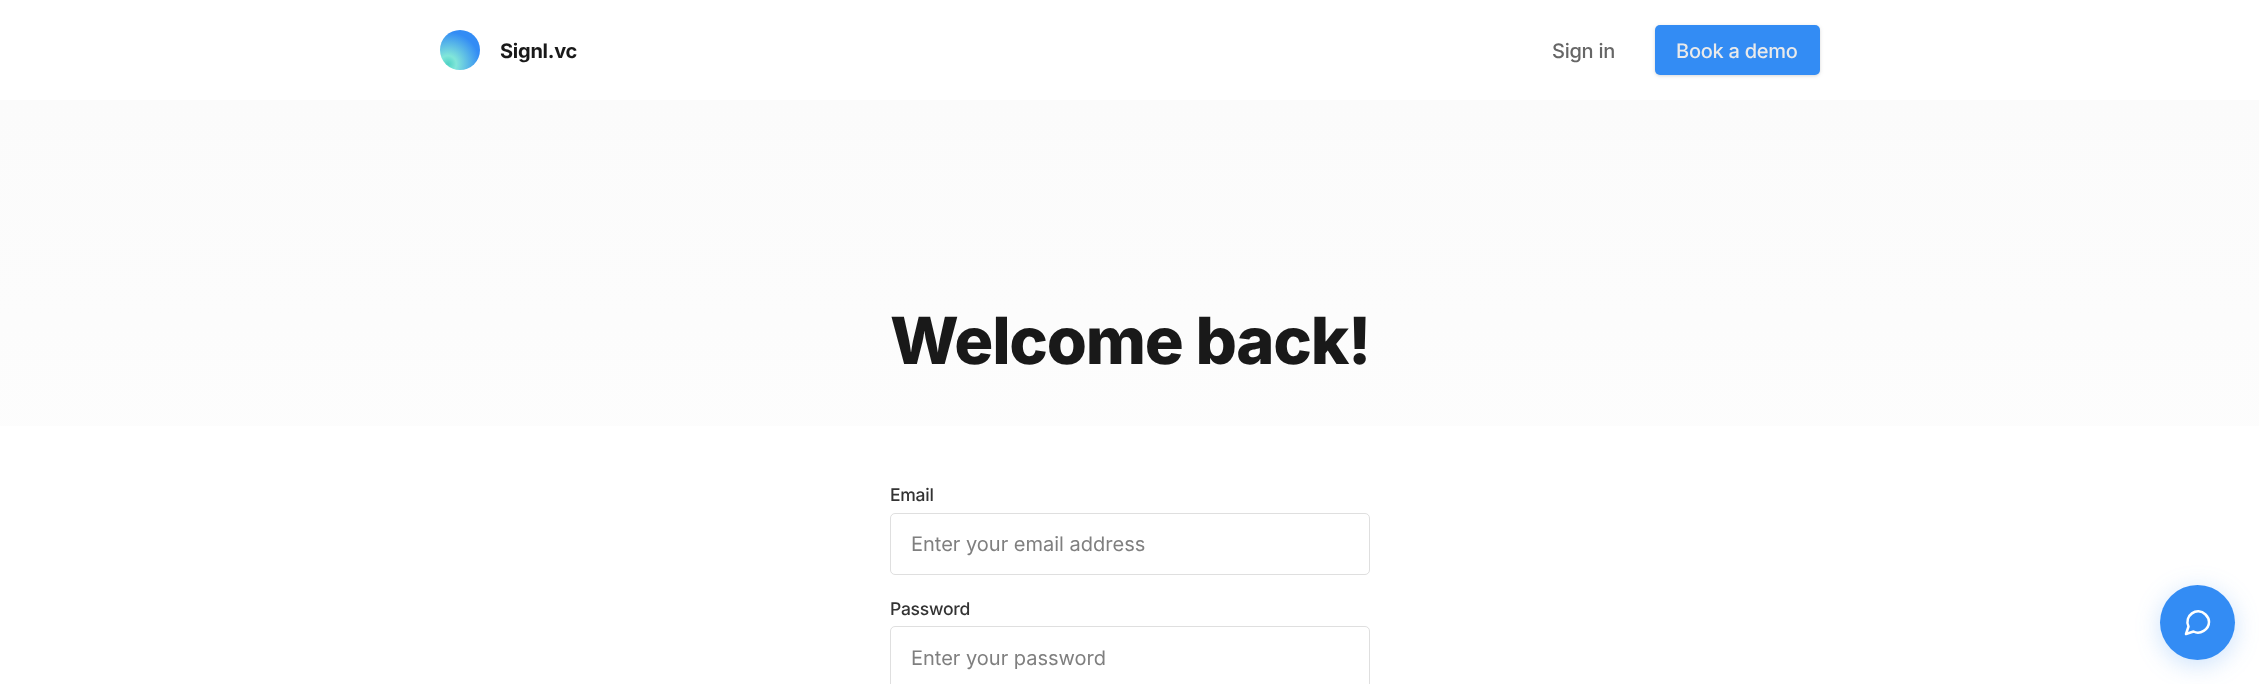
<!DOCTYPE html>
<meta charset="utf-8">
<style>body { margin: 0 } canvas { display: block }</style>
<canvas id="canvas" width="2259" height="684"></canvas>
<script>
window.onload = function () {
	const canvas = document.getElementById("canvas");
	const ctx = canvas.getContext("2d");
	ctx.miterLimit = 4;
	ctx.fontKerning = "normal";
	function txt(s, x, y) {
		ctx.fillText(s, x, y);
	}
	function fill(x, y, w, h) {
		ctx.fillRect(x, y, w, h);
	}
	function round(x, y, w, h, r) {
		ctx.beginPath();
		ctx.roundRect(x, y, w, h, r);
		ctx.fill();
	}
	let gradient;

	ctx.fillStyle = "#FFFFFF";
	fill(0, 0, 2259, 684);
	gradient = ctx.createRadialGradient(448, 64, 0, 448, 64, 32);
	gradient.addColorStop(0, "#4FD1C5");
	gradient.addColorStop(0.26, "#81E6D9");
	gradient.addColorStop(1, "#338CF5");
	ctx.fillStyle = gradient;
	ctx.beginPath();
	ctx.arc(460, 50, 20, 0, Math.PI * 2);
	ctx.fill();
	ctx.fillStyle = "rgba(0, 0, 0, 0.06)";
	ctx.filter = "blur(1px)";
	ctx.beginPath();
	ctx.roundRect(1655, 26, 165, 50, 5);
	ctx.fill();
	ctx.filter = "none";
	ctx.fillStyle = "rgba(0, 0, 0, 0.1)";
	ctx.filter = "blur(2px)";
	ctx.beginPath();
	ctx.roundRect(1655, 26, 165, 50, 5);
	ctx.fill();
	ctx.filter = "none";
	ctx.fillStyle = "#338CF4";
	round(1655, 25, 165, 50, 5);
	gradient = ctx.createLinearGradient(1130, 100, 1130, 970);
	gradient.addColorStop(0, "#FBFBFB");
	gradient.addColorStop(1, "#FFFFFF");
	ctx.fillStyle = gradient;
	fill(0, 100, 2259, 326);
	ctx.beginPath();
	ctx.roundRect(890.5, 513.5, 479, 61, 4.5);
	ctx.strokeStyle = "#DFDFDF";
	ctx.stroke();
	ctx.beginPath();
	ctx.roundRect(890.5, 626.5, 479, 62, 4.5);
	ctx.stroke();
	ctx.fillStyle = "rgba(51, 140, 244, 0.25)";
	ctx.filter = "blur(12.5px)";
	ctx.beginPath();
	ctx.roundRect(2160, 590, 75, 75, 37.5);
	ctx.fill();
	ctx.filter = "none";
	ctx.fillStyle = "#338CF4";
	ctx.beginPath();
	ctx.arc(2197.5, 622.5, 37.5, 0, Math.PI * 2);
	ctx.fill();
	ctx.beginPath();
	ctx.moveTo(2209, 622);
	ctx.bezierCurveTo(2209, 629.5, 2200, 635, 2193.5, 631.5);
	ctx.lineTo(2186, 634);
	ctx.lineTo(2188.5, 626.5);
	ctx.bezierCurveTo(2183.5, 616, 2197, 606, 2205.5, 614.5);
	ctx.bezierCurveTo(2207.5, 616.5, 2209, 619, 2209, 622);
	ctx.closePath();
	ctx.strokeStyle = "#FFFFFF";
	ctx.lineWidth = 2.5;
	ctx.lineCap = "round";
	ctx.lineJoin = "round";
	ctx.stroke();
	ctx.letterSpacing = "-0.25px";
	ctx.font = "bold 20px Inter";
	ctx.fillStyle = "#191919";
	txt("Signl.vc", 500, 58);
	ctx.font = "500 20px Inter";
	ctx.fillStyle = "#666666";
	txt("Sign in", 1552, 58);
	ctx.fillStyle = "#EAEAEA";
	txt("Book a demo", 1676, 58);
	ctx.letterSpacing = "-1.25px";
	ctx.font = "800 65px Inter";
	ctx.fillStyle = "#191919";
	txt("Welcome back!", 890, 364);
	ctx.letterSpacing = "-0.25px";
	ctx.font = "500 17.5px Inter";
	ctx.fillStyle = "#333333";
	txt("Email", 890, 501);
	ctx.letterSpacing = "0px";
	ctx.font = "20px Inter";
	ctx.fillStyle = "#7F7F7F";
	txt("Enter your email address", 911, 551);
	ctx.letterSpacing = "-0.25px";
	ctx.font = "500 17.5px Inter";
	ctx.fillStyle = "#333333";
	txt("Password", 890, 615);
	ctx.letterSpacing = "0px";
	ctx.font = "20px Inter";
	ctx.fillStyle = "#7F7F7F";
	txt("Enter your password", 911, 665);
};
</script>
